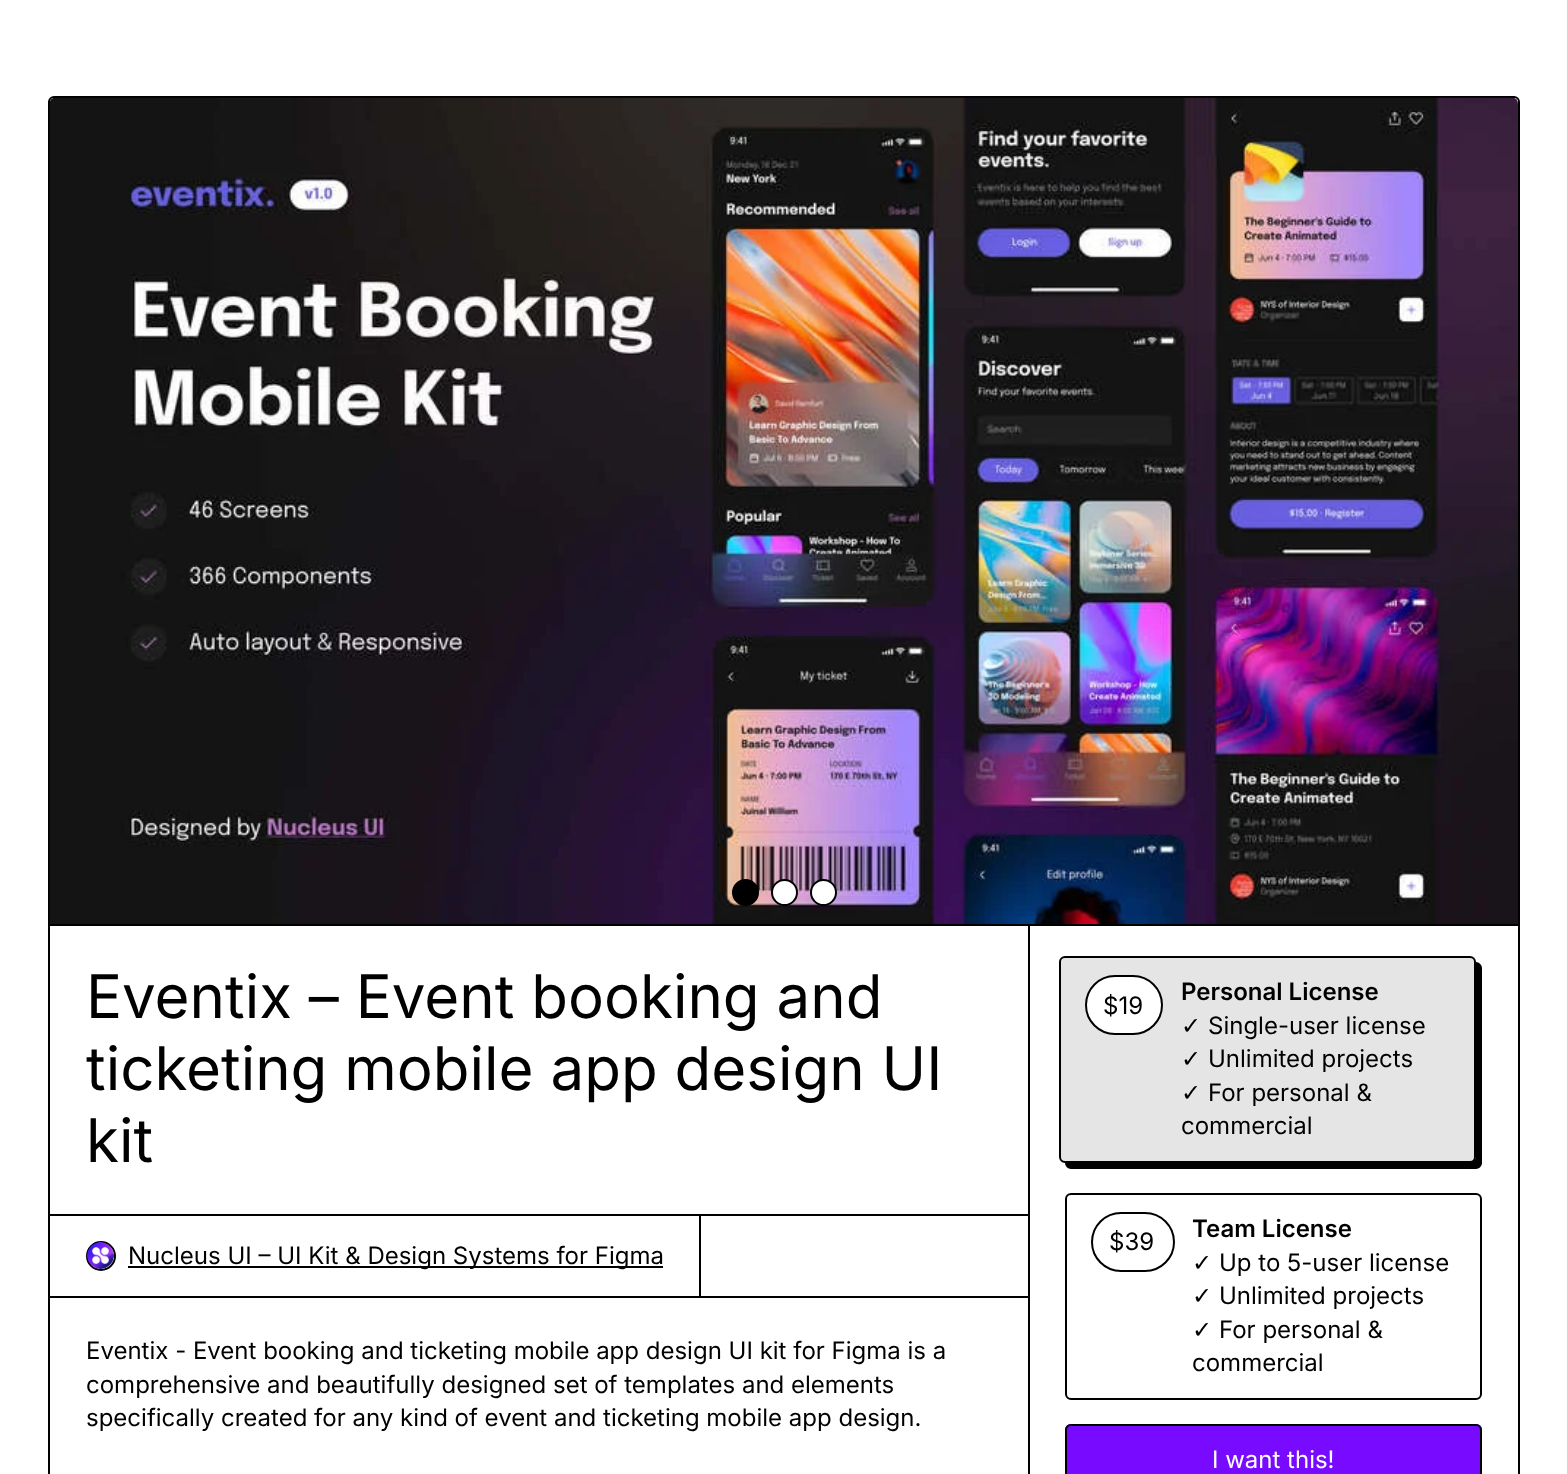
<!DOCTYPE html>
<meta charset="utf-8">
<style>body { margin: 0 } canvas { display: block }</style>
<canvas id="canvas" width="1567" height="1474"></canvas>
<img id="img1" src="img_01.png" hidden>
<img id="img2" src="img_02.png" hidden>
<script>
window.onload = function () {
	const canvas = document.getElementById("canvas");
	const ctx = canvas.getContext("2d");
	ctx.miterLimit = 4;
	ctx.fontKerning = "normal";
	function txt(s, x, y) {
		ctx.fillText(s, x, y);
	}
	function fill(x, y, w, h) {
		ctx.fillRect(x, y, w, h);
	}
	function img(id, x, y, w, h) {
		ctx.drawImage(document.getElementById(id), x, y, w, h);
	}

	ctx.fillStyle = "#FFFFFF";
	fill(0, 0, 1567, 1474);
	ctx.beginPath();
	ctx.roundRect(49, 97, 1470, 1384, 5);
	ctx.strokeStyle = "#000000";
	ctx.lineWidth = 2;
	ctx.stroke();
	ctx.fillStyle = "#000000";
	fill(50, 924, 1468, 2);
	img("img1", 49, 97, 1469, 827);
	ctx.beginPath();
	ctx.arc(745.5, 892.5, 12.5, 0, Math.PI * 2);
	ctx.fill();
	ctx.stroke();
	ctx.fillStyle = "#FFFFFF";
	ctx.beginPath();
	ctx.arc(784.5, 892.5, 12.5, 0, Math.PI * 2);
	ctx.fill();
	ctx.stroke();
	ctx.beginPath();
	ctx.arc(823.5, 892.5, 12.5, 0, Math.PI * 2);
	ctx.fill();
	ctx.stroke();
	ctx.fillStyle = "#000000";
	fill(1028, 926, 2, 548);
	fill(701, 1214, 327, 2);
	ctx.strokeRect(49, 1215, 651, 82);
	ctx.beginPath();
	ctx.arc(101, 1256, 14, 0, Math.PI * 2);
	ctx.stroke();
	img("img2", 87, 1242, 27, 27);
	fill(128, 1266, 535, 2);
	fill(701, 1296, 327, 2);
	ctx.beginPath();
	ctx.moveTo(1065, 1162);
	ctx.lineTo(1065, 1163);
	ctx.bezierCurveTo(1065, 1166, 1068, 1169, 1071, 1169);
	ctx.lineTo(1476, 1169);
	ctx.bezierCurveTo(1479, 1169, 1482, 1166, 1482, 1163);
	ctx.lineTo(1482, 968);
	ctx.bezierCurveTo(1482, 965, 1479, 962, 1476, 962);
	ctx.lineTo(1476, 1156);
	ctx.bezierCurveTo(1476, 1160, 1473, 1162, 1470, 1162);
	ctx.closePath();
	ctx.fill();
	ctx.fillStyle = "rgba(0, 0, 0, 0.1)";
	ctx.beginPath();
	ctx.roundRect(1060, 957, 415, 205, 5);
	ctx.fill();
	ctx.stroke();
	ctx.fillStyle = "#FFFFFF";
	ctx.beginPath();
	ctx.roundRect(1086, 976, 76, 58, 29);
	ctx.fill();
	ctx.stroke();
	ctx.beginPath();
	ctx.roundRect(1066, 1194, 415, 205, 5);
	ctx.stroke();
	ctx.beginPath();
	ctx.roundRect(1092, 1213, 82, 58, 29);
	ctx.stroke();
	ctx.fillStyle = "#780AFF";
	ctx.beginPath();
	ctx.moveTo(1071, 1424);
	ctx.lineTo(1476, 1424);
	ctx.bezierCurveTo(1479.5, 1424, 1482, 1426.5, 1482, 1430);
	ctx.lineTo(1482, 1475);
	ctx.lineTo(1065, 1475);
	ctx.lineTo(1065, 1430);
	ctx.bezierCurveTo(1065, 1426.5, 1067.5, 1424, 1071, 1424);
	ctx.closePath();
	ctx.fill();
	ctx.beginPath();
	ctx.roundRect(1066, 1425, 415, 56, 5);
	ctx.stroke();
	ctx.font = "60px Inter";
	ctx.fillStyle = "#000000";
	txt("Eventix – Event booking and", 86, 1018);
	txt("ticketing mobile app design UI", 86, 1090);
	txt("kit", 86, 1162);
	ctx.font = "24px Inter";
	txt("Nucleus UI – UI Kit & Design Systems for Figma", 128, 1264);
	txt("Eventix - Event booking and ticketing mobile app design UI kit for Figma is a", 86, 1359);
	txt("comprehensive and beautifully designed set of templates and elements", 86, 1393);
	txt("specifically created for any kind of event and ticketing mobile app design.", 86, 1426);
	txt("$19", 1103, 1014);
	ctx.font = "600 24px Inter";
	txt("Personal License", 1181, 1000);
	ctx.font = "24px DejaVu Sans";
	txt("✓", 1181, 1034);
	ctx.font = "24px Inter";
	txt("Single-user license", 1208, 1034);
	ctx.font = "24px DejaVu Sans";
	txt("✓", 1181, 1067);
	ctx.font = "24px Inter";
	txt("Unlimited projects", 1208, 1067);
	ctx.font = "24px DejaVu Sans";
	txt("✓", 1181, 1101);
	ctx.font = "24px Inter";
	txt("For personal &", 1208, 1101);
	txt("commercial", 1181, 1134);
	txt("$39", 1109, 1250);
	ctx.font = "600 24px Inter";
	txt("Team License", 1192, 1237);
	ctx.font = "24px DejaVu Sans";
	txt("✓", 1192, 1271);
	ctx.font = "24px Inter";
	txt("Up to 5-user license", 1219, 1271);
	ctx.font = "24px DejaVu Sans";
	txt("✓", 1192, 1304);
	ctx.font = "24px Inter";
	txt("Unlimited projects", 1219, 1304);
	ctx.font = "24px DejaVu Sans";
	txt("✓", 1192, 1338);
	ctx.font = "24px Inter";
	txt("For personal &", 1219, 1338);
	txt("commercial", 1192, 1371);
	ctx.fillStyle = "#FFFFFF";
	txt("I want this!", 1212, 1468);
};
</script>
